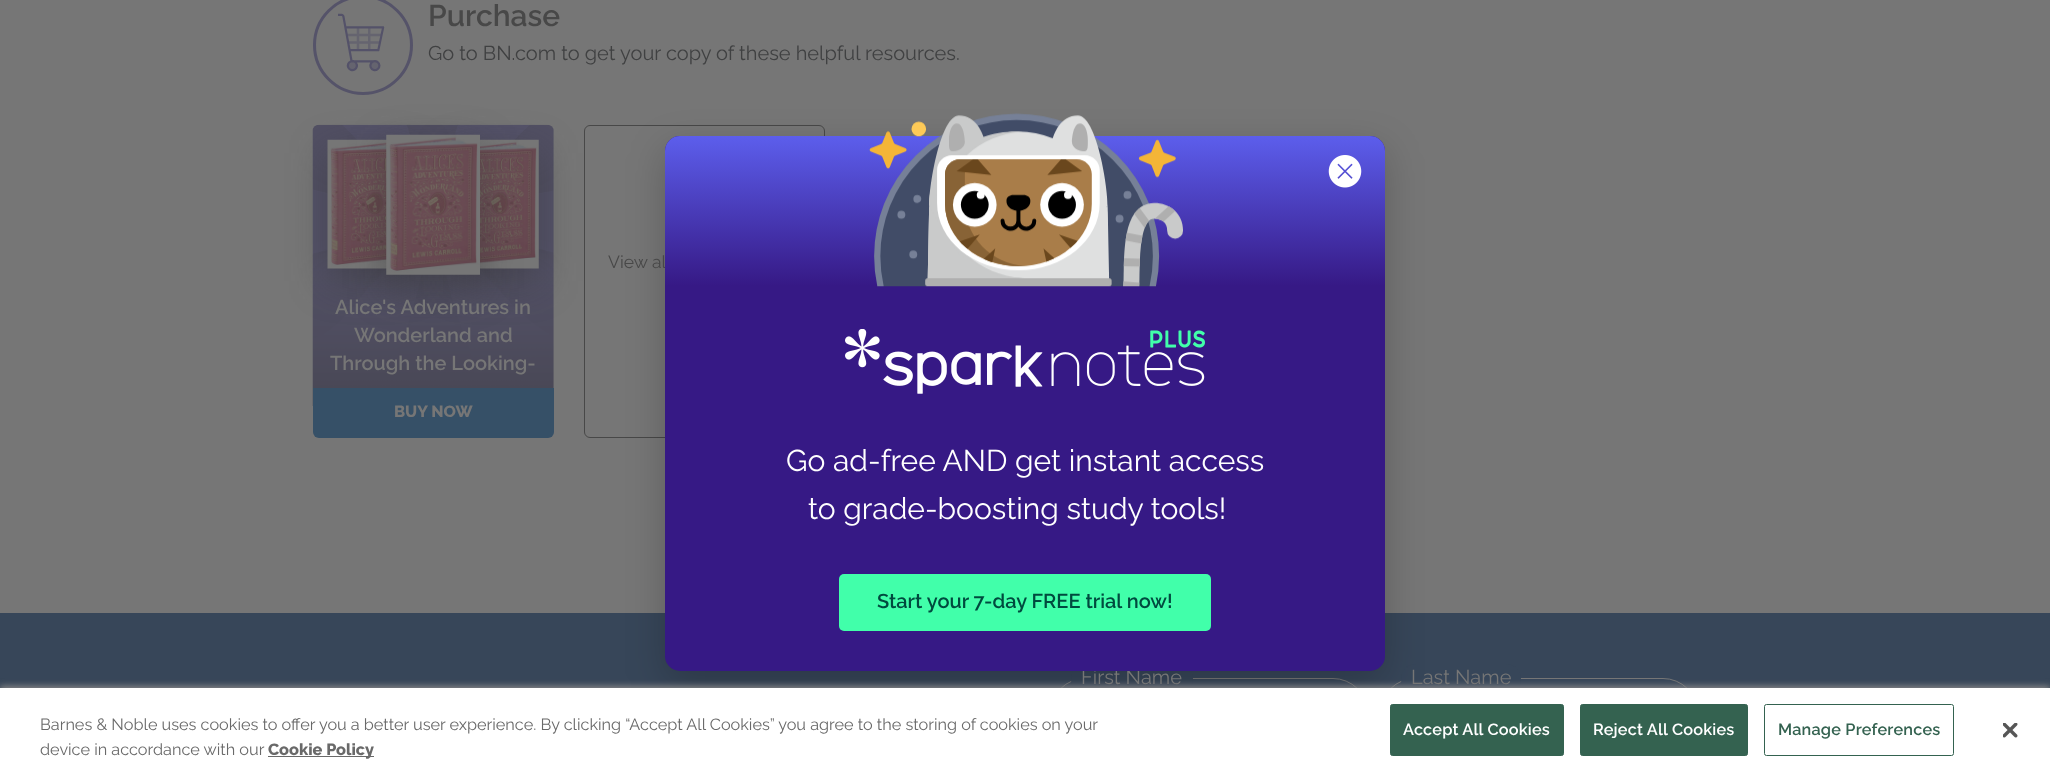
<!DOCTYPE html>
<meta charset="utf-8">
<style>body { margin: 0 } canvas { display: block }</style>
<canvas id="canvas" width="2050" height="776"></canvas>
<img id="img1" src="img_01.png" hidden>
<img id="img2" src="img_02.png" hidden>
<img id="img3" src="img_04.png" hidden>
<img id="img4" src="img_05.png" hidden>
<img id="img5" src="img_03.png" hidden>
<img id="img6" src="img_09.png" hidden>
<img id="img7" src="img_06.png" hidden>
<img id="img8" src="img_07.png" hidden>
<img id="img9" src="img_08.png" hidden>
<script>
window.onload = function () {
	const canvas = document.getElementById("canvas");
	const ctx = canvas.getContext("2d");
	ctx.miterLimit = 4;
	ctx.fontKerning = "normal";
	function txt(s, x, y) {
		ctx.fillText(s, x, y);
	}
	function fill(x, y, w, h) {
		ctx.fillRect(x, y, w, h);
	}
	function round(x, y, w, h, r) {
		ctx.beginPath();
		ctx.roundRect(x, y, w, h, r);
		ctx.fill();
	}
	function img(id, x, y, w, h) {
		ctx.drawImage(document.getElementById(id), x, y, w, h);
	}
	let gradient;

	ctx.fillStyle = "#767676";
	fill(0, 0, 2050, 776);
	img("img1", 338, 13, 47, 59);
	ctx.beginPath();
	ctx.arc(363, 45, 48.5, 0, Math.PI * 2);
	ctx.strokeStyle = "#555369";
	ctx.lineWidth = 3;
	ctx.stroke();
	ctx.beginPath();
	ctx.roundRect(584.5, 125.5, 240, 312, 5.5);
	ctx.strokeStyle = "#484848";
	ctx.lineWidth = 1;
	ctx.stroke();
	img("img2", 312, 124, 242, 282);
	ctx.fillStyle = "rgba(54, 54, 54, 0.5)";
	ctx.filter = "blur(19px)";
	ctx.beginPath();
	ctx.rect(328, 153, 86, 128);
	ctx.fill();
	ctx.filter = "none";
	img("img3", 327, 139, 60, 130);
	ctx.filter = "blur(19px)";
	ctx.beginPath();
	ctx.rect(453, 153, 86, 128);
	ctx.fill();
	ctx.filter = "none";
	img("img4", 480, 139, 59, 130);
	ctx.filter = "blur(19px)";
	ctx.beginPath();
	ctx.rect(386, 148, 94, 140);
	ctx.fill();
	ctx.filter = "none";
	img("img5", 386, 134, 94, 141);
	ctx.fillStyle = "#365067";
	ctx.beginPath();
	ctx.roundRect(313, 388, 241, 50, [0, 0, 6, 6]);
	ctx.fill();
	ctx.fillStyle = "#374659";
	fill(0, 613, 2050, 75);
	ctx.beginPath();
	ctx.roundRect(1050.5, 678.5, 317, 69, 34.5);
	ctx.strokeStyle = "#767676";
	ctx.stroke();
	round(1071, 664, 122, 30, 15);
	ctx.beginPath();
	ctx.roundRect(1380.5, 678.5, 317, 69, 34.5);
	ctx.stroke();
	round(1401, 664, 120, 30, 15);
	ctx.fillStyle = "rgba(0, 0, 0, 0.2)";
	ctx.filter = "blur(19px)";
	ctx.beginPath();
	ctx.roundRect(665, 149, 720, 535, 15);
	ctx.fill();
	ctx.filter = "none";
	ctx.fillStyle = "#888888";
	ctx.filter = "blur(3px)";
	ctx.beginPath();
	ctx.rect(0, 686, 2050, 89);
	ctx.fill();
	ctx.filter = "none";
	ctx.fillStyle = "#FFFFFF";
	fill(0, 688, 2050, 88);
	ctx.fillStyle = "#696969";
	fill(268, 756, 106, 1);
	ctx.fillStyle = "#346250";
	ctx.beginPath();
	ctx.roundRect(1390.5, 704.5, 173, 51, 2);
	ctx.fill();
	ctx.strokeStyle = "#346250";
	ctx.stroke();
	ctx.beginPath();
	ctx.roundRect(1580.5, 704.5, 167, 51, 2);
	ctx.fill();
	ctx.stroke();
	ctx.beginPath();
	ctx.roundRect(1764.5, 704.5, 189, 51, 2);
	ctx.stroke();
	img("img6", 2003, 723, 15, 15);
	ctx.font = "600 30px Raleway";
	ctx.fillStyle = "#484848";
	txt("Purchase", 428, 26);
	ctx.font = "20px Raleway";
	ctx.fillStyle = "#404142";
	txt("Go to BN.com to get your copy of these helpful resources.", 428, 60);
	ctx.font = "17.5px Raleway";
	ctx.fillStyle = "#484848";
	txt("View al", 608, 268);
	ctx.font = "600 20px Raleway";
	ctx.fillStyle = "#767676";
	txt("Alice's Adventures in", 335, 314);
	txt("Wonderland and", 354, 342);
	txt("Through the Looking-", 330, 370);
	ctx.font = "800 16.25px Raleway";
	txt("BUY NOW", 394, 417);
	ctx.font = "20px Raleway";
	txt("First Name", 1081, 684);
	ctx.fillStyle = "#361985";
	round(665, 136, 720, 535, 15);
	gradient = ctx.createLinearGradient(1025, 286, 1025, 136);
	gradient.addColorStop(0, "#361985");
	gradient.addColorStop(1, "#5C5EEC");
	ctx.fillStyle = gradient;
	ctx.beginPath();
	ctx.roundRect(665, 136, 720, 150, [15, 15, 0, 0]);
	ctx.fill();
	img("img7", 869, 113, 314, 174);
	img("img8", 1328, 155, 34, 33);
	ctx.fillStyle = "#41FFAA";
	round(839, 574, 372, 57, 5);
	ctx.font = "600 20px Raleway";
	ctx.fillStyle = "#004A3E";
	txt("Start your 7-day FREE trial now!", 877, 608);
	ctx.font = "30px Raleway";
	ctx.fillStyle = "#FFFFFF";
	txt("to grade-boosting study tools!", 808, 519);
	txt("Go ad-free AND get instant access", 786, 471);
	img("img9", 845, 329, 360, 65);
	ctx.font = "20px Raleway";
	ctx.fillStyle = "#767676";
	txt("Last Name", 1411, 684);
	ctx.font = "16.25px Raleway";
	ctx.fillStyle = "#696969";
	txt("Barnes & Noble uses cookies to offer you a better user experience. By clicking “Accept All Cookies” you agree to the storing of cookies on your", 40, 730);
	txt("device in accordance with our", 40, 755);
	ctx.font = "800 16.25px Raleway";
	txt("Cookie Policy", 268, 755);
	ctx.letterSpacing = "0.2px";
	ctx.font = "600 16.25px Raleway";
	ctx.fillStyle = "#FFFFFF";
	txt("Accept All Cookies", 1403, 735);
	txt("Reject All Cookies", 1593, 735);
	ctx.fillStyle = "#346250";
	txt("Manage Preferences", 1778, 735);
};
</script>
